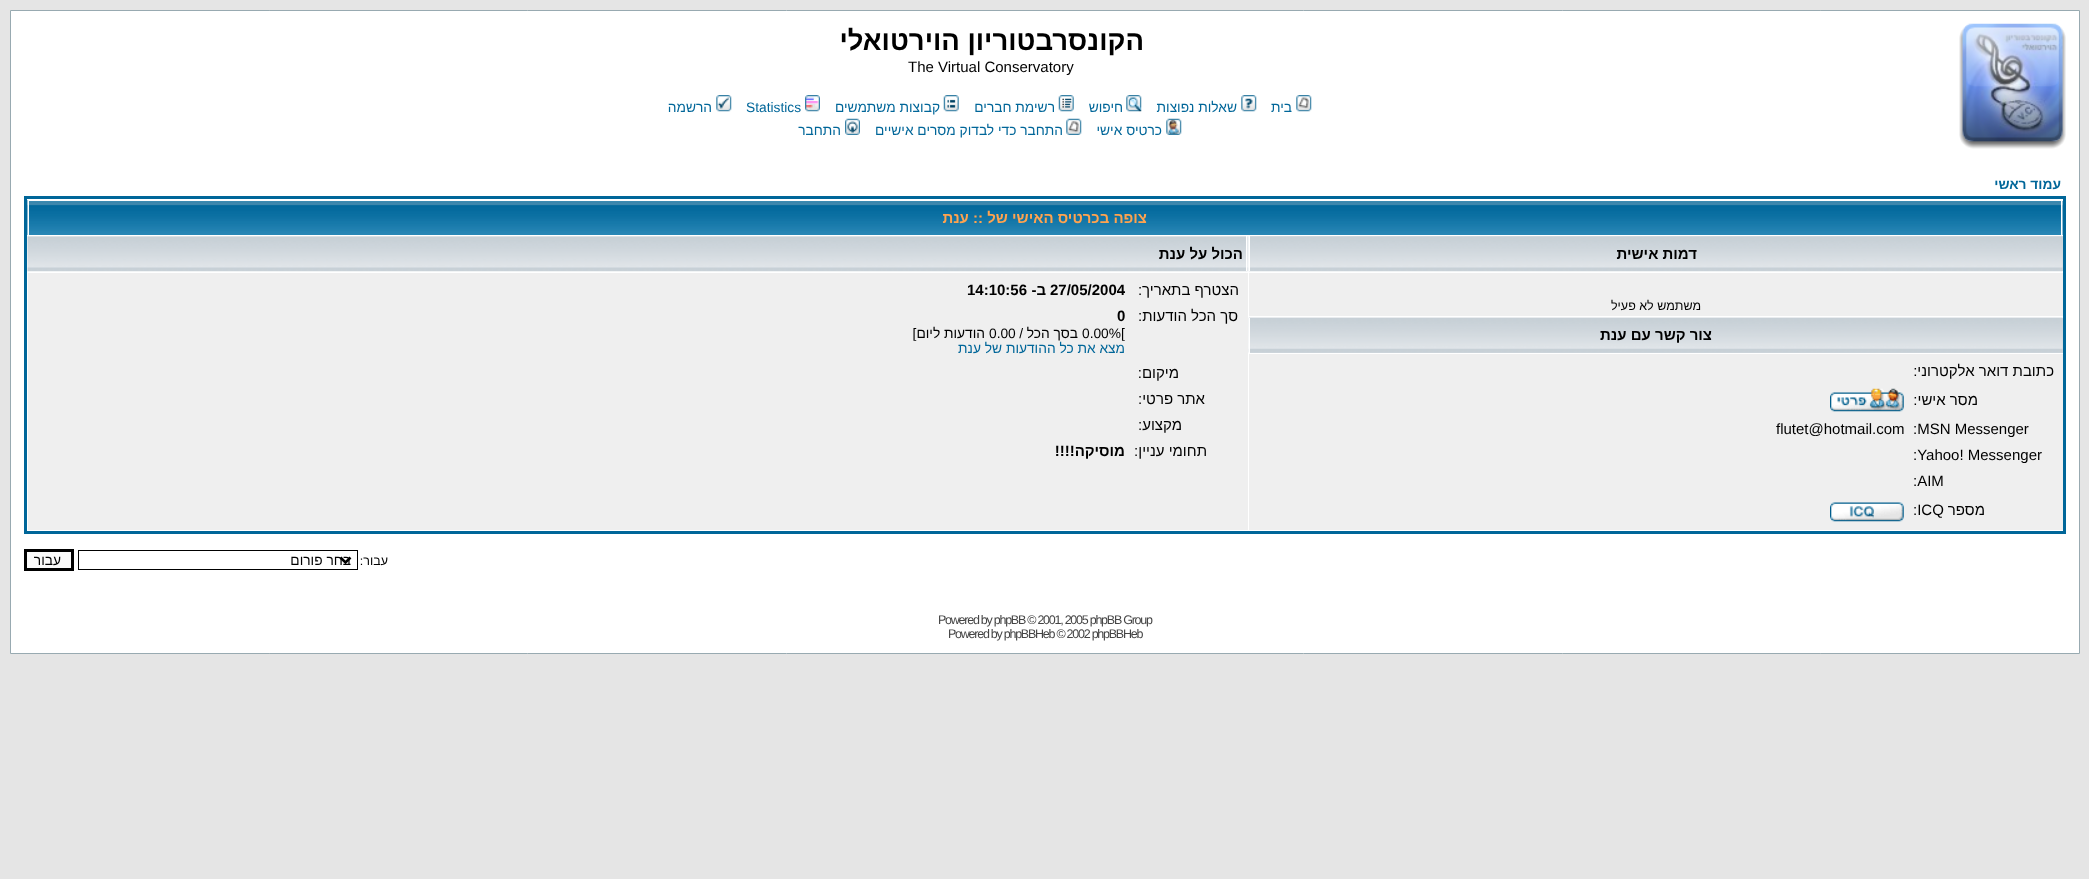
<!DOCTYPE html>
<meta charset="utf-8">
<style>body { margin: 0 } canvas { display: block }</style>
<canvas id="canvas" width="2089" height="879"></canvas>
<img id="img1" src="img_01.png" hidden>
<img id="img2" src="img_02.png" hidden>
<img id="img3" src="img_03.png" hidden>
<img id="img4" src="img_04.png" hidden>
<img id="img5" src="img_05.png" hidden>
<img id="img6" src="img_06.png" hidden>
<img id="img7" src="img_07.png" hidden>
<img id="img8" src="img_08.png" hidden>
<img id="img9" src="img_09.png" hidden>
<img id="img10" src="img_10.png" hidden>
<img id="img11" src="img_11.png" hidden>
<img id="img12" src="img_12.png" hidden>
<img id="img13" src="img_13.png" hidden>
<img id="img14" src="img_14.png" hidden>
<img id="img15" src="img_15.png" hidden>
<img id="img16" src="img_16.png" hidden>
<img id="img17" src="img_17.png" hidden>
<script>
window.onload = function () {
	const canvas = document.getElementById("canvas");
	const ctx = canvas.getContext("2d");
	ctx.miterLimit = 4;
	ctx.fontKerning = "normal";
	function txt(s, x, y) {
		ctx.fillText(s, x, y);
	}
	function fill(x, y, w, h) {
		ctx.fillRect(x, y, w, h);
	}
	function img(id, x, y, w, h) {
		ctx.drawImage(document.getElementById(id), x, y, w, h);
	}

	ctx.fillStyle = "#E5E5E5";
	fill(0, 0, 2089, 879);
	ctx.fillStyle = "#FFFFFF";
	ctx.beginPath();
	ctx.rect(10.5, 10.5, 2069, 643);
	ctx.fill();
	ctx.strokeStyle = "#98AAB1";
	ctx.stroke();
	img("img1", 1959, 23, 107, 126);
	img("img2", 1296, 95, 16, 17);
	img("img3", 1241, 95, 16, 17);
	img("img4", 1126, 95, 16, 17);
	img("img5", 1058, 95, 16, 17);
	img("img6", 943, 95, 16, 17);
	img("img7", 805, 95, 15, 17);
	img("img8", 716, 95, 16, 17);
	img("img9", 1166, 118, 16, 17);
	img("img10", 1066, 118, 16, 17);
	img("img11", 845, 118, 15, 17);
	ctx.strokeStyle = "#006699";
	ctx.lineWidth = 3;
	ctx.strokeRect(25.5, 197.5, 2039, 335);
	img("img12", 27, 200, 2036, 35);
	fill(28, 200, 2035, 1);
	fill(2061, 200, 1, 35);
	fill(28, 200, 1, 35);
	ctx.fillStyle = "#D1D7DC";
	fill(1250, 236, 813, 35);
	img("img13", 1248, 236, 815, 36);
	ctx.fillStyle = "#FFFFFF";
	fill(1249, 236, 1, 35);
	img("img14", 27, 236, 1221, 36);
	fill(1246, 236, 1, 35);
	ctx.fillStyle = "#EFEFEF";
	fill(1249, 273, 814, 43);
	fill(28, 273, 1220, 257);
	ctx.fillStyle = "#D1D7DC";
	fill(1250, 318, 813, 35);
	img("img15", 1248, 317, 815, 36);
	ctx.fillStyle = "#FFFFFF";
	fill(1249, 318, 1, 35);
	ctx.fillStyle = "#EFEFEF";
	fill(1249, 354, 814, 176);
	img("img16", 1830, 388, 74, 24);
	img("img17", 1830, 502, 74, 20);
	ctx.strokeStyle = "#000000";
	ctx.lineWidth = 1;
	ctx.strokeRect(78.5, 550.5, 279, 19);
	ctx.beginPath();
	ctx.moveTo(340.5, 557.5);
	ctx.lineTo(345.5, 562.5);
	ctx.lineTo(350.5, 557.5);
	ctx.lineWidth = 2.5;
	ctx.stroke();
	ctx.fillStyle = "#FAFAFA";
	ctx.beginPath();
	ctx.rect(25.5, 550.5, 47, 19);
	ctx.fill();
	ctx.lineWidth = 3;
	ctx.stroke();
	ctx.direction = "rtl";
	ctx.font = "bold 27.5px Liberation Sans";
	ctx.fillStyle = "#000000";
	txt("הקונסרבטוריון הוירטואלי", 1144, 50);
	ctx.direction = "ltr";
	ctx.font = "15px Liberation Sans";
	txt("The Virtual Conservatory", 908, 72);
	ctx.direction = "rtl";
	ctx.font = "13.75px Liberation Sans";
	ctx.fillStyle = "#006699";
	txt("בית", 1292, 112);
	txt("שאלות נפוצות", 1237, 112);
	txt("חיפוש", 1123, 112);
	txt("רשימת חברים", 1055, 112);
	txt("קבוצות משתמשים", 940, 112);
	ctx.direction = "ltr";
	txt("Statistics", 746, 112);
	ctx.direction = "rtl";
	txt("הרשמה", 712, 112);
	txt("כרטיס אישי", 1162, 135);
	txt("התחבר כדי לבדוק מסרים אישיים", 1063, 135);
	txt("התחבר", 841, 135);
	ctx.font = "bold 13.75px Liberation Sans";
	txt("עמוד ראשי", 2061, 189);
	ctx.font = "bold 15px Liberation Sans";
	ctx.fillStyle = "#FFA34F";
	txt("צופה בכרטיס האישי של :: ענת", 1147, 223);
	ctx.fillStyle = "#000000";
	txt("דמות אישית", 1697, 259);
	txt("הכול על ענת", 1243, 259);
	ctx.font = "12.5px Liberation Sans";
	txt("משתמש לא פעיל", 1701, 310);
	ctx.font = "15px Liberation Sans";
	txt("הצטרף בתאריך:", 1239, 295);
	ctx.direction = "ltr";
	ctx.font = "bold 15px Liberation Sans";
	txt("27/05/2004", 1050, 295);
	ctx.direction = "rtl";
	txt("ב-", 1046, 295);
	ctx.direction = "ltr";
	txt("14:10:56", 967, 295);
	ctx.direction = "rtl";
	ctx.font = "15px Liberation Sans";
	txt("סך הכל הודעות:", 1238, 321);
	ctx.direction = "ltr";
	ctx.font = "bold 15px Liberation Sans";
	txt("0", 1117, 321);
	ctx.font = "13.75px Liberation Sans";
	txt("0.00%[", 1082, 338);
	ctx.direction = "rtl";
	txt("בסך הכל /", 1078, 338);
	ctx.direction = "ltr";
	txt("0.00", 989, 338);
	ctx.direction = "rtl";
	txt("הודעות ליום]", 985, 338);
	ctx.fillStyle = "#006699";
	txt("מצא את כל ההודעות של ענת", 1125, 353);
	ctx.font = "15px Liberation Sans";
	ctx.fillStyle = "#000000";
	txt("מיקום:", 1179, 378);
	txt("אתר פרטי:", 1205, 404);
	txt("מקצוע:", 1182, 430);
	txt("תחומי עניין:", 1207, 456);
	ctx.font = "bold 15px Liberation Sans";
	txt("מוסיקה!!!!", 1125, 456);
	txt("צור קשר עם ענת", 1712, 340);
	ctx.font = "15px Liberation Sans";
	txt("כתובת דואר אלקטרוני:", 2054, 376);
	txt("מסר אישי:", 1978, 405);
	ctx.direction = "ltr";
	txt(":MSN Messenger", 1913, 434);
	txt("flutet@hotmail.com", 1776, 434);
	txt(":Yahoo! Messenger", 1913, 460);
	txt(":AIM", 1913, 486);
	ctx.direction = "rtl";
	txt("מספר", 1985, 515);
	ctx.direction = "ltr";
	txt(":ICQ", 1913, 515);
	ctx.direction = "rtl";
	ctx.font = "12.5px Liberation Sans";
	txt("עבור:", 388, 565);
	ctx.font = "13.75px Liberation Sans";
	txt("בחר פורום", 351, 565);
	txt("עבור", 61, 565);
	ctx.letterSpacing = "-1.25px";
	ctx.direction = "ltr";
	ctx.font = "12.5px Liberation Sans";
	ctx.fillStyle = "#444444";
	txt("Powered by phpBB © 2001, 2005 phpBB Group", 938, 624);
	txt("Powered by phpBBHeb © 2002 phpBBHeb", 948, 638);
};
</script>
